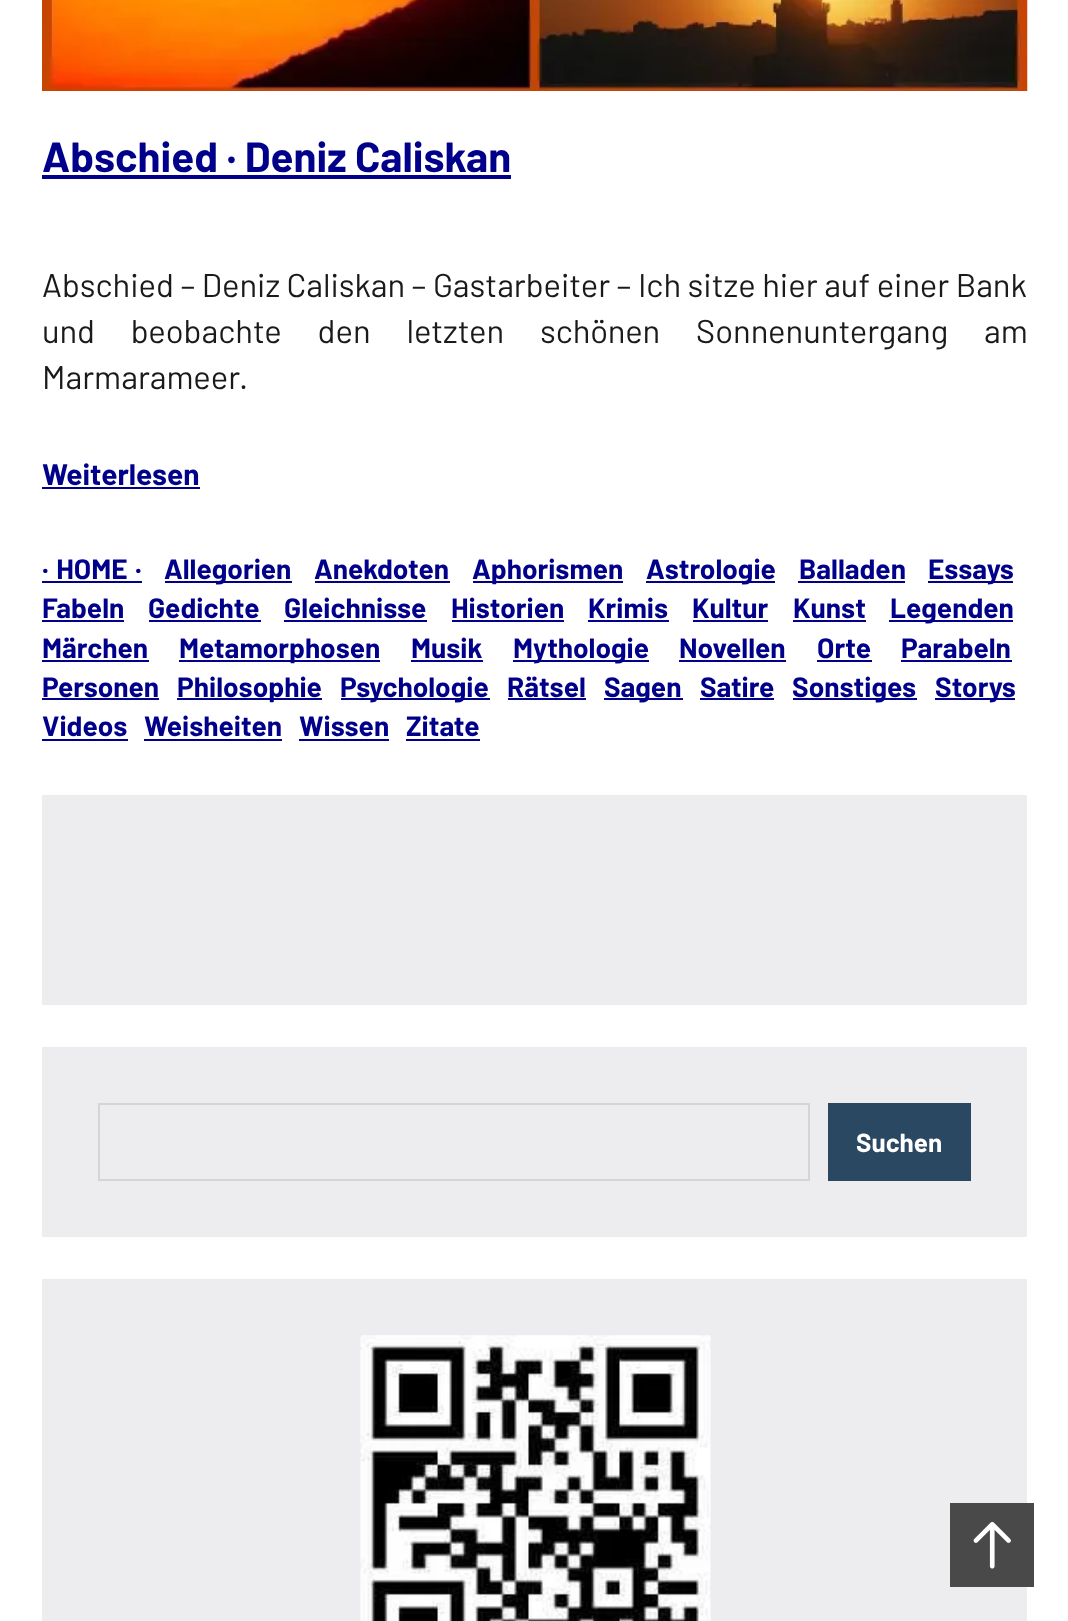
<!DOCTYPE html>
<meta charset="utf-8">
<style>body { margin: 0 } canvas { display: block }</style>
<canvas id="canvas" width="1068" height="1621"></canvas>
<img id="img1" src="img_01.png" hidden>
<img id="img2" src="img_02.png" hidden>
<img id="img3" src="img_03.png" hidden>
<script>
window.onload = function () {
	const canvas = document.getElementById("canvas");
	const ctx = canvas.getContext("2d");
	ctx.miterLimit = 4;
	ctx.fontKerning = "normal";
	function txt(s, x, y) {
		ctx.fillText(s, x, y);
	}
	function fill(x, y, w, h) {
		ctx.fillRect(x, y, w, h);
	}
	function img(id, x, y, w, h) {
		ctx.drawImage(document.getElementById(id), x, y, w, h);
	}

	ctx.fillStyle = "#FFFFFF";
	fill(0, 0, 1068, 1621);
	img("img1", 42, 0, 986, 91);
	ctx.fillStyle = "#00008B";
	fill(42, 175, 469, 4);
	fill(42, 487, 158, 2);
	fill(42, 581, 100, 2);
	fill(165, 581, 127, 2);
	fill(315, 581, 135, 2);
	fill(473, 581, 150, 2);
	fill(646, 581, 129, 2);
	fill(798, 581, 107, 2);
	fill(928, 581, 85, 2);
	fill(42, 620, 82, 2);
	fill(149, 620, 112, 2);
	fill(284, 620, 143, 2);
	fill(452, 620, 112, 2);
	fill(588, 620, 81, 2);
	fill(693, 620, 75, 2);
	fill(793, 620, 73, 2);
	fill(889, 620, 124, 2);
	fill(42, 660, 107, 2);
	fill(179, 660, 201, 2);
	fill(411, 660, 72, 2);
	fill(513, 660, 136, 2);
	fill(679, 660, 107, 2);
	fill(817, 660, 55, 2);
	fill(901, 660, 111, 2);
	fill(42, 698, 117, 2);
	fill(177, 698, 145, 2);
	fill(341, 698, 149, 2);
	fill(508, 698, 78, 2);
	fill(604, 698, 79, 2);
	fill(700, 698, 74, 2);
	fill(793, 698, 124, 2);
	fill(935, 698, 80, 2);
	fill(42, 739, 86, 2);
	fill(144, 739, 138, 2);
	fill(299, 739, 90, 2);
	fill(406, 739, 74, 2);
	ctx.fillStyle = "#EDEDEF";
	fill(42, 795, 985, 210);
	fill(42, 1047, 985, 190);
	ctx.strokeStyle = "#D5D5D7";
	ctx.lineWidth = 2;
	ctx.strokeRect(99, 1104, 710, 76);
	ctx.fillStyle = "#2A4861";
	fill(828, 1103, 143, 78);
	ctx.fillStyle = "#EDEDEF";
	fill(42, 1279, 985, 342);
	img("img2", 360, 1335, 351, 286);
	ctx.fillStyle = "#494949";
	fill(950, 1503, 84, 84);
	img("img3", 973, 1521, 38, 48);
	ctx.font = "bold 42px Barlow";
	ctx.fillStyle = "#00008B";
	txt("Abschied · Deniz Caliskan", 42, 172);
	ctx.font = "32.75px Barlow";
	ctx.fillStyle = "#1A1A1A";
	txt("Abschied – Deniz Caliskan – Gastarbeiter – Ich sitze hier auf einer Bank", 42, 297);
	ctx.wordSpacing = "29.25px";
	txt("und beobachte den letzten schönen Sonnenuntergang am", 42, 343);
	ctx.wordSpacing = "0px";
	txt("Marmarameer.", 42, 389);
	ctx.font = "bold 29.75px Barlow";
	ctx.fillStyle = "#00008B";
	txt("Weiterlesen", 42, 485);
	ctx.wordSpacing = "2px";
	ctx.font = "bold 28px Barlow";
	txt("· HOME ·", 42, 579);
	ctx.wordSpacing = "0px";
	txt("Allegorien", 164, 579);
	txt("Anekdoten", 314, 579);
	txt("Aphorismen", 472, 579);
	txt("Astrologie", 646, 579);
	txt("Balladen", 799, 579);
	txt("Essays", 928, 579);
	txt("Fabeln", 42, 618);
	txt("Gedichte", 148, 618);
	txt("Gleichnisse", 284, 618);
	txt("Historien", 451, 618);
	txt("Krimis", 588, 618);
	txt("Kultur", 692, 618);
	txt("Kunst", 793, 618);
	txt("Legenden", 890, 618);
	txt("Märchen", 42, 658);
	txt("Metamorphosen", 179, 658);
	txt("Musik", 411, 658);
	txt("Mythologie", 513, 658);
	txt("Novellen", 679, 658);
	txt("Orte", 817, 658);
	txt("Parabeln", 901, 658);
	txt("Personen", 42, 697);
	txt("Philosophie", 177, 697);
	txt("Psychologie", 340, 697);
	txt("Rätsel", 507, 697);
	txt("Sagen", 604, 697);
	txt("Satire", 700, 697);
	txt("Sonstiges", 792, 697);
	txt("Storys", 935, 697);
	txt("Videos", 42, 736);
	txt("Weisheiten", 144, 736);
	txt("Wissen", 299, 736);
	txt("Zitate", 406, 736);
	ctx.font = "bold 26px Barlow";
	ctx.fillStyle = "#FFFFFF";
	txt("Suchen", 856, 1152);
};
</script>
